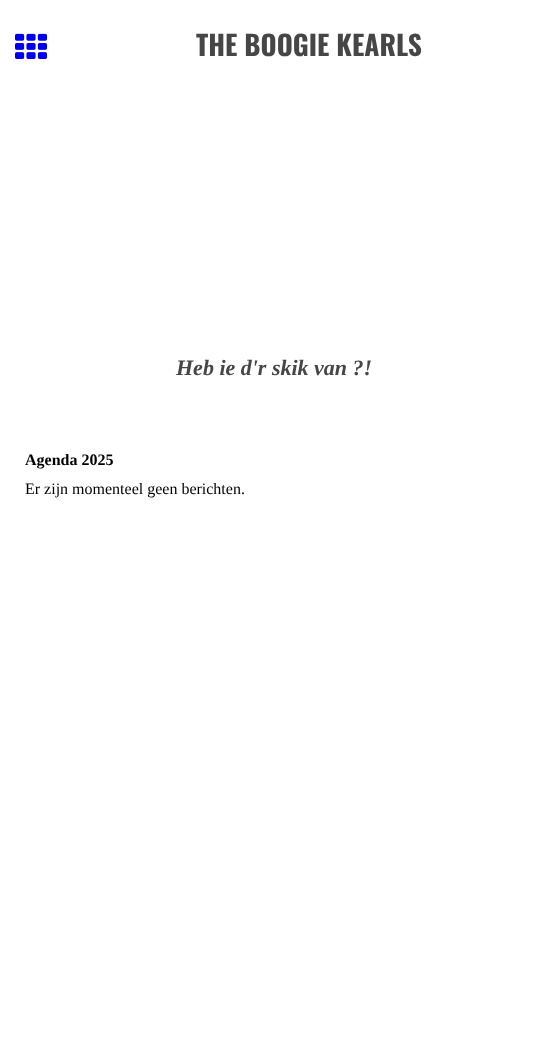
<!DOCTYPE html>
<meta charset="utf-8">
<style>body { margin: 0 } canvas { display: block }</style>
<canvas id="canvas" width="548" height="1058"></canvas>
<img id="img1" src="img_01.png" hidden>
<script>
window.onload = function () {
	const canvas = document.getElementById("canvas");
	const ctx = canvas.getContext("2d");
	ctx.miterLimit = 4;
	ctx.fontKerning = "normal";
	function txt(s, x, y) {
		ctx.fillText(s, x, y);
	}
	function fill(x, y, w, h) {
		ctx.fillRect(x, y, w, h);
	}
	function img(id, x, y, w, h) {
		ctx.drawImage(document.getElementById(id), x, y, w, h);
	}

	ctx.fillStyle = "#FFFFFF";
	fill(0, 0, 548, 1058);
	img("img1", 15, 33, 32, 26);
	ctx.font = "bold 27.5px Oswald";
	ctx.fillStyle = "#464646";
	txt("THE BOOGIE KEARLS", 196, 56);
	ctx.font = "italic bold 22px Liberation Serif";
	txt("Heb ie d'r skik van ?!", 176, 375);
	ctx.font = "bold 16px Liberation Serif";
	ctx.fillStyle = "#000000";
	txt("Agenda 2025", 25, 465);
	ctx.font = "16px Liberation Serif";
	txt("Er zijn momenteel geen berichten.", 25, 494);
};
</script>
